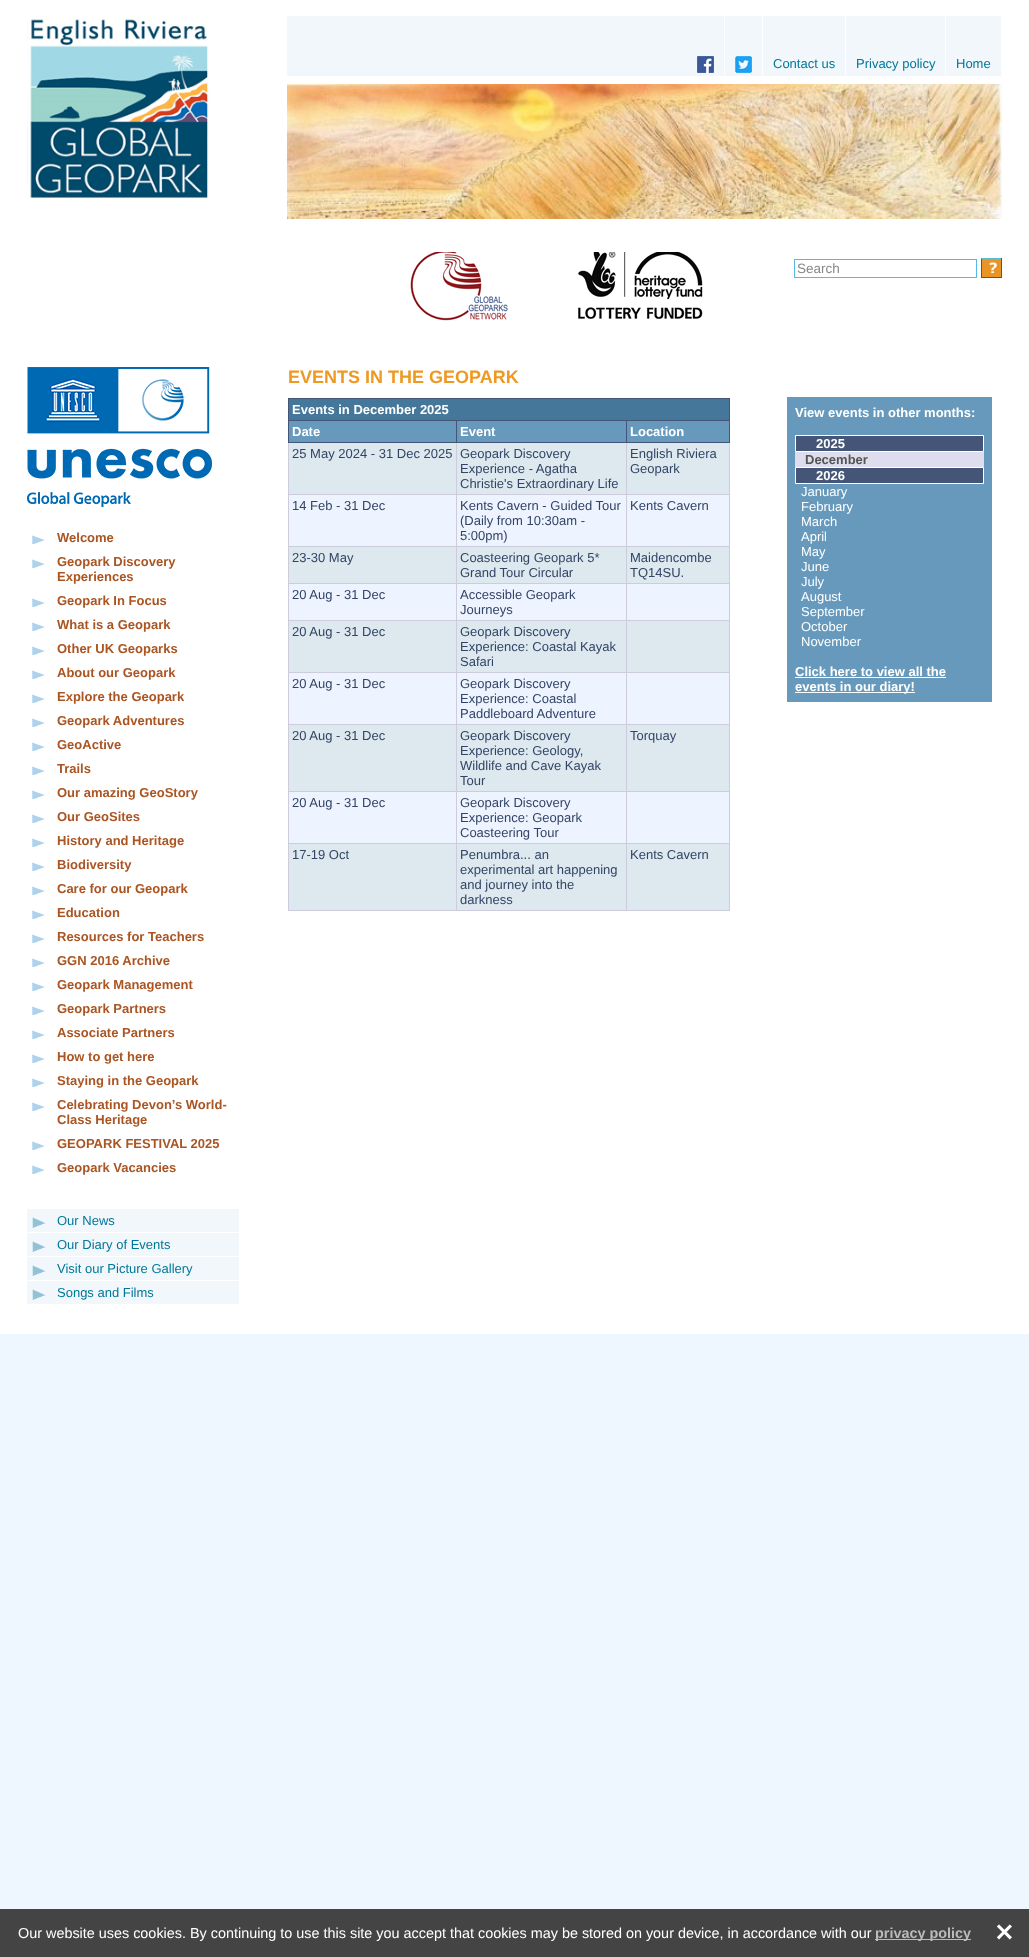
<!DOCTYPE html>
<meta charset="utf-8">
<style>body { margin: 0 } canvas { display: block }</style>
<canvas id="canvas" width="1029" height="1957"></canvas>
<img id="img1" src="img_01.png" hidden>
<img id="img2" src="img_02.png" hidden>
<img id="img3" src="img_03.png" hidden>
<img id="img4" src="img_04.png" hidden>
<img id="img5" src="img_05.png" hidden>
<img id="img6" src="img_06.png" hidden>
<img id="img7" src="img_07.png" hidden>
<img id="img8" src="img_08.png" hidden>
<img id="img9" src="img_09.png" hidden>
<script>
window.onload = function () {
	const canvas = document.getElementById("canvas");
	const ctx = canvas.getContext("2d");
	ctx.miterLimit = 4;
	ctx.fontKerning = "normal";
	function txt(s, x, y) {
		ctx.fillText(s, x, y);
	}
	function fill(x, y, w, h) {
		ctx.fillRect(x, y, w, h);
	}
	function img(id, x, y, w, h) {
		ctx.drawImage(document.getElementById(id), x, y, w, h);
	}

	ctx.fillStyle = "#EEF7FF";
	fill(0, 0, 1029, 1957);
	ctx.fillStyle = "#FFFFFF";
	fill(0, 0, 1029, 1334);
	img("img1", 27, 19, 182, 179);
	ctx.fillStyle = "#F2F7FB";
	fill(287, 16, 715, 60);
	ctx.fillStyle = "#FFFFFF";
	fill(724, 16, 1, 64);
	img("img2", 697, 56, 17, 17);
	fill(762, 16, 1, 64);
	img("img3", 735, 56, 17, 17);
	fill(845, 16, 1, 59);
	fill(945, 16, 1, 59);
	fill(1001, 16, 1, 59);
	img("img4", 287, 84, 715, 135);
	img("img5", 410, 252, 293, 69);
	ctx.strokeStyle = "#55BBDD";
	ctx.strokeRect(794.5, 259.5, 182, 18);
	img("img6", 981, 258, 21, 20);
	img("img7", 27, 367, 185, 140);
	img("img8", 32, 535, 13, 9);
	img("img8", 32, 559, 13, 9);
	img("img8", 32, 598, 13, 9);
	img("img8", 32, 622, 13, 9);
	img("img8", 32, 646, 13, 9);
	img("img8", 32, 670, 13, 9);
	img("img8", 32, 694, 13, 9);
	img("img8", 32, 718, 13, 9);
	img("img8", 32, 742, 13, 9);
	img("img8", 32, 766, 13, 9);
	img("img8", 32, 790, 13, 9);
	img("img8", 32, 814, 13, 9);
	img("img8", 32, 838, 13, 9);
	img("img8", 32, 862, 13, 9);
	img("img8", 32, 886, 13, 9);
	img("img8", 32, 910, 13, 9);
	img("img8", 32, 934, 13, 9);
	img("img8", 32, 958, 13, 9);
	img("img8", 32, 982, 13, 9);
	img("img8", 32, 1006, 13, 9);
	img("img8", 32, 1030, 13, 9);
	img("img8", 32, 1054, 13, 9);
	img("img8", 32, 1078, 13, 9);
	img("img8", 32, 1102, 13, 9);
	img("img8", 32, 1141, 13, 9);
	img("img8", 32, 1165, 13, 9);
	ctx.fillStyle = "#F2F7FB";
	fill(27, 1209, 212, 23);
	img("img9", 32, 1217, 14, 11);
	fill(27, 1233, 212, 23);
	img("img9", 32, 1241, 14, 11);
	fill(27, 1257, 212, 23);
	img("img9", 32, 1265, 14, 11);
	fill(27, 1281, 212, 23);
	img("img9", 32, 1289, 14, 11);
	ctx.fillStyle = "#CCCCDD";
	fill(729, 443, 1, 468);
	ctx.fillStyle = "#447799";
	fill(289, 399, 440, 21);
	ctx.fillStyle = "#445577";
	fill(288, 398, 442, 1);
	fill(626, 420, 104, 1);
	fill(729, 420, 1, 23);
	fill(729, 398, 1, 23);
	ctx.fillStyle = "#CCCCDD";
	fill(626, 494, 104, 1);
	fill(626, 546, 104, 1);
	fill(626, 583, 104, 1);
	fill(626, 620, 104, 1);
	fill(626, 672, 104, 1);
	fill(626, 724, 104, 1);
	fill(626, 791, 104, 1);
	fill(626, 843, 104, 1);
	fill(626, 910, 104, 1);
	fill(626, 843, 1, 68);
	fill(456, 843, 171, 1);
	fill(626, 791, 1, 53);
	fill(456, 791, 171, 1);
	fill(626, 724, 1, 68);
	fill(456, 724, 171, 1);
	fill(626, 672, 1, 53);
	fill(456, 672, 171, 1);
	fill(626, 620, 1, 53);
	fill(456, 620, 171, 1);
	fill(626, 583, 1, 38);
	fill(456, 583, 171, 1);
	fill(626, 546, 1, 38);
	fill(456, 546, 171, 1);
	fill(626, 494, 1, 53);
	fill(456, 494, 171, 1);
	fill(626, 442, 1, 53);
	ctx.fillStyle = "#445577";
	fill(626, 442, 104, 1);
	fill(626, 420, 1, 23);
	fill(456, 420, 171, 1);
	ctx.fillStyle = "#CCCCDD";
	fill(456, 910, 171, 1);
	fill(456, 843, 1, 68);
	fill(288, 843, 169, 1);
	fill(456, 791, 1, 53);
	fill(288, 791, 169, 1);
	fill(456, 724, 1, 68);
	fill(288, 724, 169, 1);
	fill(456, 672, 1, 53);
	fill(288, 672, 169, 1);
	fill(456, 620, 1, 53);
	fill(288, 620, 169, 1);
	fill(456, 583, 1, 38);
	fill(288, 583, 169, 1);
	fill(456, 546, 1, 38);
	fill(288, 546, 169, 1);
	fill(456, 494, 1, 53);
	fill(288, 494, 169, 1);
	fill(456, 442, 1, 53);
	ctx.fillStyle = "#445577";
	fill(456, 442, 171, 1);
	fill(456, 420, 1, 23);
	fill(288, 420, 169, 1);
	ctx.fillStyle = "#CCCCDD";
	fill(288, 910, 169, 1);
	fill(288, 843, 1, 68);
	fill(288, 791, 1, 53);
	fill(288, 724, 1, 68);
	fill(288, 672, 1, 53);
	fill(288, 620, 1, 53);
	fill(288, 583, 1, 38);
	fill(288, 546, 1, 38);
	fill(288, 442, 1, 105);
	ctx.fillStyle = "#445577";
	fill(288, 442, 169, 1);
	fill(288, 420, 1, 23);
	fill(288, 398, 1, 23);
	ctx.fillStyle = "#6699BB";
	fill(289, 421, 167, 21);
	fill(457, 421, 169, 21);
	fill(627, 421, 102, 21);
	ctx.fillStyle = "#DDE9EE";
	fill(289, 443, 167, 51);
	fill(457, 443, 169, 51);
	fill(627, 443, 102, 51);
	ctx.fillStyle = "#EEF4FF";
	fill(289, 495, 167, 51);
	fill(457, 495, 169, 51);
	fill(627, 495, 102, 51);
	ctx.fillStyle = "#DDE9EE";
	fill(289, 547, 167, 36);
	fill(457, 547, 169, 36);
	fill(627, 547, 102, 36);
	ctx.fillStyle = "#EEF4FF";
	fill(289, 584, 167, 36);
	fill(457, 584, 169, 36);
	fill(627, 584, 102, 36);
	ctx.fillStyle = "#DDE9EE";
	fill(289, 621, 167, 51);
	fill(457, 621, 169, 51);
	fill(627, 621, 102, 51);
	ctx.fillStyle = "#EEF4FF";
	fill(289, 673, 167, 51);
	fill(457, 673, 169, 51);
	fill(627, 673, 102, 51);
	ctx.fillStyle = "#DDE9EE";
	fill(289, 725, 167, 66);
	fill(457, 725, 169, 66);
	fill(627, 725, 102, 66);
	ctx.fillStyle = "#EEF4FF";
	fill(289, 792, 167, 51);
	fill(457, 792, 169, 51);
	fill(627, 792, 102, 51);
	ctx.fillStyle = "#DDE9EE";
	fill(289, 844, 167, 66);
	fill(457, 844, 169, 66);
	fill(627, 844, 102, 66);
	ctx.fillStyle = "#6699BB";
	fill(787, 397, 205, 305);
	ctx.fillStyle = "#445577";
	ctx.beginPath();
	ctx.rect(795.5, 435.5, 188, 16);
	ctx.fill();
	ctx.strokeStyle = "#FFFFFF";
	ctx.stroke();
	ctx.fillStyle = "#DDDDEE";
	fill(795, 452, 189, 15);
	ctx.fillStyle = "#445577";
	ctx.beginPath();
	ctx.rect(795.5, 467.5, 188, 16);
	ctx.fill();
	ctx.stroke();
	ctx.fillStyle = "#FFFFFF";
	fill(795, 677, 151, 1);
	fill(795, 692, 120, 1);
	ctx.fillStyle = "#444444";
	fill(0, 1909, 1029, 48);
	ctx.fillStyle = "#BBBBBB";
	fill(875, 1939, 96, 1);
	ctx.font = "13px Liberation Sans";
	ctx.fillStyle = "#007799";
	txt("Contact us", 773, 68);
	txt("Privacy policy", 856, 68);
	txt("Home", 956, 68);
	ctx.font = "13.5px Liberation Sans";
	ctx.fillStyle = "#888888";
	txt("Search", 797, 273);
	ctx.font = "bold 13px Liberation Sans";
	ctx.fillStyle = "#AA5522";
	txt("Welcome", 57, 542);
	txt("Geopark Discovery", 57, 566);
	txt("Experiences", 57, 581);
	txt("Geopark In Focus", 57, 605);
	txt("What is a Geopark", 57, 629);
	txt("Other UK Geoparks", 57, 653);
	txt("About our Geopark", 57, 677);
	txt("Explore the Geopark", 57, 701);
	txt("Geopark Adventures", 57, 725);
	txt("GeoActive", 57, 749);
	txt("Trails", 57, 773);
	txt("Our amazing GeoStory", 57, 797);
	txt("Our GeoSites", 57, 821);
	txt("History and Heritage", 57, 845);
	txt("Biodiversity", 57, 869);
	txt("Care for our Geopark", 57, 893);
	txt("Education", 57, 917);
	txt("Resources for Teachers", 57, 941);
	txt("GGN 2016 Archive", 57, 965);
	txt("Geopark Management", 57, 989);
	txt("Geopark Partners", 57, 1013);
	txt("Associate Partners", 57, 1037);
	txt("How to get here", 57, 1061);
	txt("Staying in the Geopark", 57, 1085);
	txt("Celebrating Devon’s World-", 57, 1109);
	txt("Class Heritage", 57, 1124);
	txt("GEOPARK FESTIVAL 2025", 57, 1148);
	txt("Geopark Vacancies", 57, 1172);
	ctx.font = "13px Liberation Sans";
	ctx.fillStyle = "#007799";
	txt("Our News", 57, 1225);
	txt("Our Diary of Events", 57, 1249);
	txt("Visit our Picture Gallery", 57, 1273);
	txt("Songs and Films", 57, 1297);
	ctx.font = "bold 18px Liberation Sans";
	ctx.fillStyle = "#EE9922";
	txt("EVENTS IN THE GEOPARK", 288, 383);
	ctx.font = "bold 13px Liberation Sans";
	ctx.fillStyle = "#FFFFFF";
	txt("Events in December 2025", 292, 414);
	txt("Date", 292, 436);
	txt("Event", 460, 436);
	txt("Location", 630, 436);
	ctx.font = "13px Liberation Sans";
	ctx.fillStyle = "#334466";
	txt("25 May 2024 - 31 Dec 2025", 292, 458);
	txt("Geopark Discovery", 460, 458);
	txt("Experience - Agatha", 460, 473);
	txt("Christie's Extraordinary Life", 460, 488);
	txt("English Riviera", 630, 458);
	txt("Geopark", 630, 473);
	txt("14 Feb - 31 Dec", 292, 510);
	txt("Kents Cavern - Guided Tour", 460, 510);
	txt("(Daily from 10:30am -", 460, 525);
	txt("5:00pm)", 460, 540);
	txt("Kents Cavern", 630, 510);
	txt("23-30 May", 292, 562);
	txt("Coasteering Geopark 5*", 460, 562);
	txt("Grand Tour Circular", 460, 577);
	txt("Maidencombe", 630, 562);
	txt("TQ14SU.", 630, 577);
	txt("20 Aug - 31 Dec", 292, 599);
	txt("Accessible Geopark", 460, 599);
	txt("Journeys", 460, 614);
	txt("20 Aug - 31 Dec", 292, 636);
	txt("Geopark Discovery", 460, 636);
	txt("Experience: Coastal Kayak", 460, 651);
	txt("Safari", 460, 666);
	txt("20 Aug - 31 Dec", 292, 688);
	txt("Geopark Discovery", 460, 688);
	txt("Experience: Coastal", 460, 703);
	txt("Paddleboard Adventure", 460, 718);
	txt("20 Aug - 31 Dec", 292, 740);
	txt("Geopark Discovery", 460, 740);
	txt("Experience: Geology,", 460, 755);
	txt("Wildlife and Cave Kayak", 460, 770);
	txt("Tour", 460, 785);
	txt("Torquay", 630, 740);
	txt("20 Aug - 31 Dec", 292, 807);
	txt("Geopark Discovery", 460, 807);
	txt("Experience: Geopark", 460, 822);
	txt("Coasteering Tour", 460, 837);
	txt("17-19 Oct", 292, 859);
	txt("Penumbra... an", 460, 859);
	txt("experimental art happening", 460, 874);
	txt("and journey into the", 460, 889);
	txt("darkness", 460, 904);
	txt("Kents Cavern", 630, 859);
	ctx.font = "bold 13px Liberation Sans";
	ctx.fillStyle = "#FFFFFF";
	txt("View events in other months:", 795, 417);
	txt("2025", 816, 448);
	ctx.fillStyle = "#555555";
	txt("December", 805, 464);
	ctx.fillStyle = "#FFFFFF";
	txt("2026", 816, 480);
	ctx.font = "13px Liberation Sans";
	txt("January", 801, 496);
	txt("February", 801, 511);
	txt("March", 801, 526);
	txt("April", 801, 541);
	txt("May", 801, 556);
	txt("June", 801, 571);
	txt("July", 801, 586);
	txt("August", 801, 601);
	txt("September", 801, 616);
	txt("October", 801, 631);
	txt("November", 801, 646);
	ctx.font = "bold 13px Liberation Sans";
	txt("Click here to view all the", 795, 676);
	txt("events in our diary!", 795, 691);
	ctx.font = "14.4px Liberation Sans";
	txt("Our website uses cookies. By continuing to use this site you accept that cookies may be stored on your device, in accordance with our", 18, 1938);
	ctx.font = "bold 14.4px Liberation Sans";
	ctx.fillStyle = "#BBBBBB";
	txt("privacy policy", 875, 1938);
	ctx.font = "bold 24px DejaVu Sans";
	ctx.fillStyle = "#FFFFFF";
	txt("✕", 994, 1941);
};
</script>
